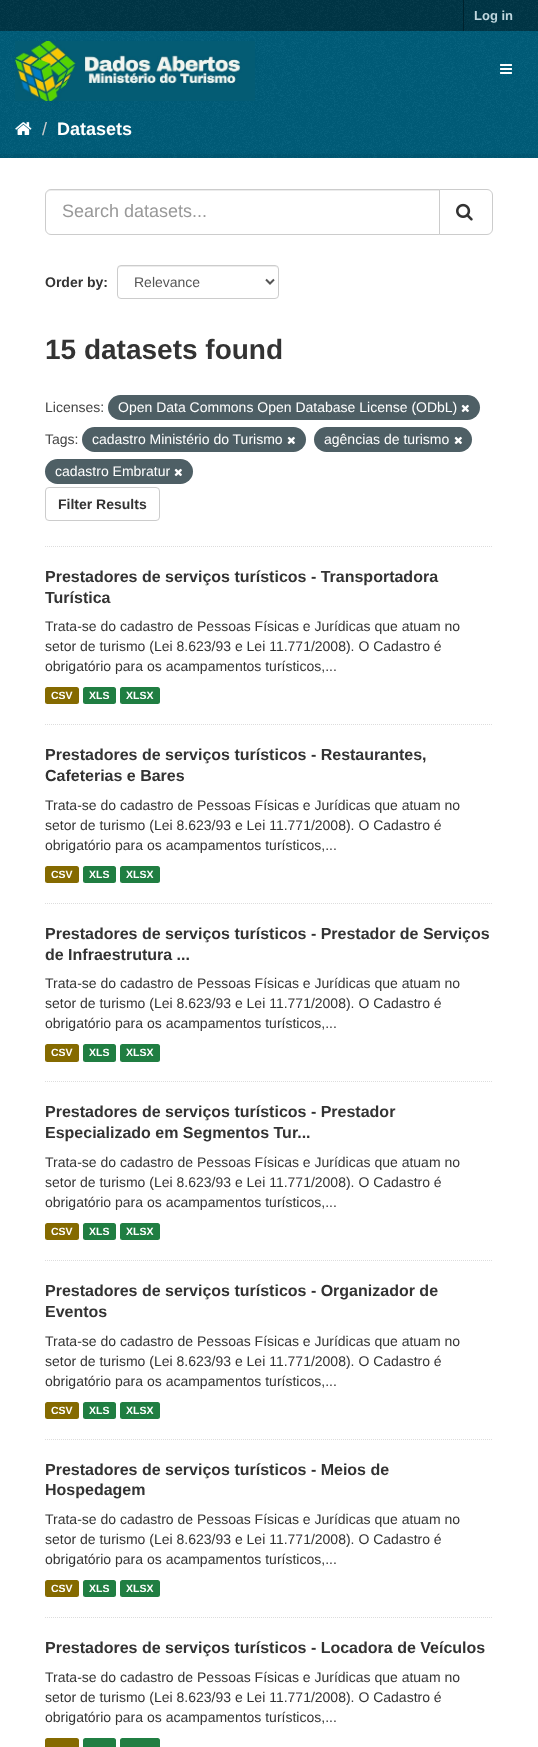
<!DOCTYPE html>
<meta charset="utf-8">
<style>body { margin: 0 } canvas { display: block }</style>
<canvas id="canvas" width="538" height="1747"></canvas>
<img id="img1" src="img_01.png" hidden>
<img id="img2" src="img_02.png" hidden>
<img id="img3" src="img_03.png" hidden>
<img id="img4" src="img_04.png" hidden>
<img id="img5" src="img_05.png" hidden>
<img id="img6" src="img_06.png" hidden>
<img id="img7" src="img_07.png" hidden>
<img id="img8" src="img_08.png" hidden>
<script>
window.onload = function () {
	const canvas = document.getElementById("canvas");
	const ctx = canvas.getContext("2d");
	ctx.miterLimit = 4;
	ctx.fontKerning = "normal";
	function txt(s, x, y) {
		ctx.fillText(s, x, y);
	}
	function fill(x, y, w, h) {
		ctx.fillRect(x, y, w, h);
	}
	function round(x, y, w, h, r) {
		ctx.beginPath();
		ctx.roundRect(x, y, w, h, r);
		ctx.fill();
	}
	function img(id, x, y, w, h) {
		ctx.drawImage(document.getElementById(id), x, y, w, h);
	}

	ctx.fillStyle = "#005D7A";
	fill(0, 0, 538, 1747);
	img("img1", 0, 112, 538, 46);
	ctx.fillStyle = "#003647";
	fill(0, 0, 538, 31);
	img("img2", 0, 0, 538, 31);
	ctx.fillStyle = "#00232E";
	fill(463, 0, 1, 31);
	img("img3", 0, 31, 538, 81);
	img("img4", 15, 41, 240, 60);
	img("img5", 500, 64, 12, 10);
	img("img6", 15, 122, 17, 13);
	ctx.strokeStyle = "rgba(0, 0, 0, 0.05)";
	ctx.lineWidth = 4;
	ctx.strokeRect(-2, 156, 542, 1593);
	ctx.fillStyle = "#FFFFFF";
	fill(0, 158, 538, 1589);
	ctx.beginPath();
	ctx.moveTo(45, 546.5);
	ctx.lineTo(493, 546.5);
	ctx.strokeStyle = "#DDDDDD";
	ctx.lineWidth = 1;
	ctx.setLineDash([1, 1]);
	ctx.stroke();
	ctx.fillStyle = "#ECECEC";
	ctx.beginPath();
	ctx.moveTo(51, 191);
	ctx.lineTo(439, 191);
	ctx.lineTo(439, 190);
	ctx.lineTo(51, 190);
	ctx.bezierCurveTo(48, 190, 46, 193, 46, 196);
	ctx.bezierCurveTo(46, 193, 48, 191, 51, 191);
	ctx.closePath();
	ctx.fill();
	ctx.beginPath();
	ctx.roundRect(45.5, 189.5, 394, 45, [5.5, 0, 0, 5.5]);
	ctx.strokeStyle = "#CCCCCC";
	ctx.setLineDash([]);
	ctx.stroke();
	ctx.fillStyle = "#FFFFFF";
	ctx.beginPath();
	ctx.roundRect(439.5, 189.5, 53, 45, [0, 5.5, 5.5, 0]);
	ctx.fill();
	ctx.stroke();
	img("img7", 456, 203, 17, 18);
	ctx.fillStyle = "#ECECEC";
	ctx.beginPath();
	ctx.moveTo(121, 267);
	ctx.lineTo(275, 267);
	ctx.bezierCurveTo(277, 267, 278, 268, 278, 270);
	ctx.bezierCurveTo(278, 268, 277, 266, 275, 266);
	ctx.lineTo(120, 266);
	ctx.bezierCurveTo(118, 266, 118, 268, 118, 270);
	ctx.bezierCurveTo(118, 268, 119, 267, 121, 267);
	ctx.closePath();
	ctx.fill();
	ctx.beginPath();
	ctx.roundRect(117.5, 265.5, 161, 33, 3.5);
	ctx.stroke();
	ctx.beginPath();
	ctx.moveTo(266, 279.5);
	ctx.lineTo(270, 283.5);
	ctx.lineTo(274, 279.5);
	ctx.strokeStyle = "#555555";
	ctx.lineWidth = 2;
	ctx.stroke();
	ctx.fillStyle = "#4E5F65";
	round(108, 395, 372, 25, 12.5);
	img("img8", 461, 404, 8, 9);
	round(82, 427, 224, 25, 12.5);
	img("img8", 287, 436, 8, 9);
	round(314, 427, 158, 25, 12.5);
	img("img8", 454, 436, 8, 9);
	round(45, 459, 148, 25, 12.5);
	img("img8", 174, 468, 8, 9);
	ctx.beginPath();
	ctx.roundRect(45.5, 487.5, 114, 33, 3.5);
	ctx.strokeStyle = "#CCCCCC";
	ctx.lineWidth = 1;
	ctx.stroke();
	ctx.beginPath();
	ctx.moveTo(45, 724.5);
	ctx.lineTo(493, 724.5);
	ctx.strokeStyle = "#DDDDDD";
	ctx.setLineDash([1, 1]);
	ctx.stroke();
	ctx.fillStyle = "#856A00";
	round(45, 687, 34, 17, 2.5);
	ctx.fillStyle = "#207E42";
	round(83, 687, 33, 17, 2.5);
	round(120, 687, 40, 17, 2.5);
	ctx.beginPath();
	ctx.moveTo(45, 903.5);
	ctx.lineTo(493, 903.5);
	ctx.stroke();
	ctx.fillStyle = "#856A00";
	round(45, 866, 34, 17, 2.5);
	ctx.fillStyle = "#207E42";
	round(83, 866, 33, 17, 2.5);
	round(120, 866, 40, 17, 2.5);
	ctx.beginPath();
	ctx.moveTo(45, 1081.5);
	ctx.lineTo(493, 1081.5);
	ctx.stroke();
	ctx.fillStyle = "#856A00";
	round(45, 1044, 34, 18, 2.5);
	ctx.fillStyle = "#207E42";
	round(83, 1044, 33, 18, 2.5);
	round(120, 1044, 40, 18, 2.5);
	ctx.beginPath();
	ctx.moveTo(45, 1260.5);
	ctx.lineTo(493, 1260.5);
	ctx.stroke();
	ctx.fillStyle = "#856A00";
	round(45, 1223, 34, 17, 2.5);
	ctx.fillStyle = "#207E42";
	round(83, 1223, 33, 17, 2.5);
	round(120, 1223, 40, 17, 2.5);
	ctx.beginPath();
	ctx.moveTo(45, 1439.5);
	ctx.lineTo(493, 1439.5);
	ctx.stroke();
	ctx.fillStyle = "#856A00";
	round(45, 1402, 34, 17, 2.5);
	ctx.fillStyle = "#207E42";
	round(83, 1402, 33, 17, 2.5);
	round(120, 1402, 40, 17, 2.5);
	ctx.beginPath();
	ctx.moveTo(45, 1617.5);
	ctx.lineTo(493, 1617.5);
	ctx.stroke();
	ctx.fillStyle = "#856A00";
	round(45, 1580, 34, 17, 2.5);
	ctx.fillStyle = "#207E42";
	round(83, 1580, 33, 17, 2.5);
	round(120, 1580, 40, 17, 2.5);
	ctx.fillStyle = "#856A00";
	round(45, 1738, 34, 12, 2.5);
	ctx.fillStyle = "#207E42";
	round(83, 1738, 33, 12, 2.5);
	round(120, 1738, 40, 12, 2.5);
	ctx.font = "bold 13px Liberation Sans";
	ctx.fillStyle = "#BFD7DE";
	txt("Log in", 474, 20);
	ctx.font = "18px Liberation Sans";
	ctx.fillStyle = "#CCCCCC";
	txt("/", 42, 135);
	ctx.font = "bold 18px Liberation Sans";
	ctx.fillStyle = "#FFFFFF";
	txt("Datasets", 57, 135);
	ctx.font = "18px Liberation Sans";
	ctx.fillStyle = "#999999";
	txt("Search datasets...", 62, 217);
	ctx.font = "bold 14px Liberation Sans";
	ctx.fillStyle = "#333333";
	txt("Order by:", 45, 287);
	ctx.font = "14px Liberation Sans";
	ctx.fillStyle = "#555555";
	txt("Relevance", 134, 287);
	ctx.font = "bold 28px Liberation Sans";
	ctx.fillStyle = "#333333";
	txt("15 datasets found", 45, 359);
	ctx.font = "14px Liberation Sans";
	ctx.fillStyle = "#444444";
	txt("Licenses:", 45, 412);
	ctx.fillStyle = "#FFFFFF";
	txt("Open Data Commons Open Database License (ODbL)", 118, 412);
	ctx.fillStyle = "#444444";
	txt("Tags:", 45, 444);
	ctx.fillStyle = "#FFFFFF";
	txt("cadastro Ministério do Turismo", 92, 444);
	txt("agências de turismo", 324, 444);
	txt("cadastro Embratur", 55, 476);
	ctx.font = "bold 14px Liberation Sans";
	ctx.fillStyle = "#333333";
	txt("Filter Results", 58, 509);
	ctx.font = "bold 16px Liberation Sans";
	txt("Prestadores de serviços turísticos - Transportadora", 45, 582);
	txt("Turística", 45, 603);
	ctx.font = "14px Liberation Sans";
	txt("Trata-se do cadastro de Pessoas Físicas e Jurídicas que atuam no", 45, 631);
	txt("setor de turismo (Lei 8.623/93 e Lei 11.771/2008). O Cadastro é", 45, 651);
	txt("obrigatório para os acampamentos turísticos,...", 45, 671);
	ctx.font = "bold 10.5px Liberation Sans";
	ctx.fillStyle = "#FFFFFF";
	txt("CSV", 51, 699);
	txt("XLS", 89, 699);
	txt("XLSX", 126, 699);
	ctx.font = "bold 16px Liberation Sans";
	ctx.fillStyle = "#333333";
	txt("Prestadores de serviços turísticos - Restaurantes,", 45, 760);
	txt("Cafeterias e Bares", 45, 781);
	ctx.font = "14px Liberation Sans";
	txt("Trata-se do cadastro de Pessoas Físicas e Jurídicas que atuam no", 45, 810);
	txt("setor de turismo (Lei 8.623/93 e Lei 11.771/2008). O Cadastro é", 45, 830);
	txt("obrigatório para os acampamentos turísticos,...", 45, 850);
	ctx.font = "bold 10.5px Liberation Sans";
	ctx.fillStyle = "#FFFFFF";
	txt("CSV", 51, 878);
	txt("XLS", 89, 878);
	txt("XLSX", 126, 878);
	ctx.font = "bold 16px Liberation Sans";
	ctx.fillStyle = "#333333";
	txt("Prestadores de serviços turísticos - Prestador de Serviços", 45, 939);
	txt("de Infraestrutura ...", 45, 960);
	ctx.font = "14px Liberation Sans";
	txt("Trata-se do cadastro de Pessoas Físicas e Jurídicas que atuam no", 45, 988);
	txt("setor de turismo (Lei 8.623/93 e Lei 11.771/2008). O Cadastro é", 45, 1008);
	txt("obrigatório para os acampamentos turísticos,...", 45, 1028);
	ctx.font = "bold 10.5px Liberation Sans";
	ctx.fillStyle = "#FFFFFF";
	txt("CSV", 51, 1056);
	txt("XLS", 89, 1056);
	txt("XLSX", 126, 1056);
	ctx.font = "bold 16px Liberation Sans";
	ctx.fillStyle = "#333333";
	txt("Prestadores de serviços turísticos - Prestador", 45, 1117);
	txt("Especializado em Segmentos Tur...", 45, 1138);
	ctx.font = "14px Liberation Sans";
	txt("Trata-se do cadastro de Pessoas Físicas e Jurídicas que atuam no", 45, 1167);
	txt("setor de turismo (Lei 8.623/93 e Lei 11.771/2008). O Cadastro é", 45, 1187);
	txt("obrigatório para os acampamentos turísticos,...", 45, 1207);
	ctx.font = "bold 10.5px Liberation Sans";
	ctx.fillStyle = "#FFFFFF";
	txt("CSV", 51, 1235);
	txt("XLS", 89, 1235);
	txt("XLSX", 126, 1235);
	ctx.font = "bold 16px Liberation Sans";
	ctx.fillStyle = "#333333";
	txt("Prestadores de serviços turísticos - Organizador de", 45, 1296);
	txt("Eventos", 45, 1317);
	ctx.font = "14px Liberation Sans";
	txt("Trata-se do cadastro de Pessoas Físicas e Jurídicas que atuam no", 45, 1346);
	txt("setor de turismo (Lei 8.623/93 e Lei 11.771/2008). O Cadastro é", 45, 1366);
	txt("obrigatório para os acampamentos turísticos,...", 45, 1386);
	ctx.font = "bold 10.5px Liberation Sans";
	ctx.fillStyle = "#FFFFFF";
	txt("CSV", 51, 1414);
	txt("XLS", 89, 1414);
	txt("XLSX", 126, 1414);
	ctx.font = "bold 16px Liberation Sans";
	ctx.fillStyle = "#333333";
	txt("Prestadores de serviços turísticos - Meios de", 45, 1475);
	txt("Hospedagem", 45, 1495);
	ctx.font = "14px Liberation Sans";
	txt("Trata-se do cadastro de Pessoas Físicas e Jurídicas que atuam no", 45, 1524);
	txt("setor de turismo (Lei 8.623/93 e Lei 11.771/2008). O Cadastro é", 45, 1544);
	txt("obrigatório para os acampamentos turísticos,...", 45, 1564);
	ctx.font = "bold 10.5px Liberation Sans";
	ctx.fillStyle = "#FFFFFF";
	txt("CSV", 51, 1592);
	txt("XLS", 89, 1592);
	txt("XLSX", 126, 1592);
	ctx.font = "bold 16px Liberation Sans";
	ctx.fillStyle = "#333333";
	txt("Prestadores de serviços turísticos - Locadora de Veículos", 45, 1653);
	ctx.font = "14px Liberation Sans";
	txt("Trata-se do cadastro de Pessoas Físicas e Jurídicas que atuam no", 45, 1682);
	txt("setor de turismo (Lei 8.623/93 e Lei 11.771/2008). O Cadastro é", 45, 1702);
	txt("obrigatório para os acampamentos turísticos,...", 45, 1722);
};
</script>
